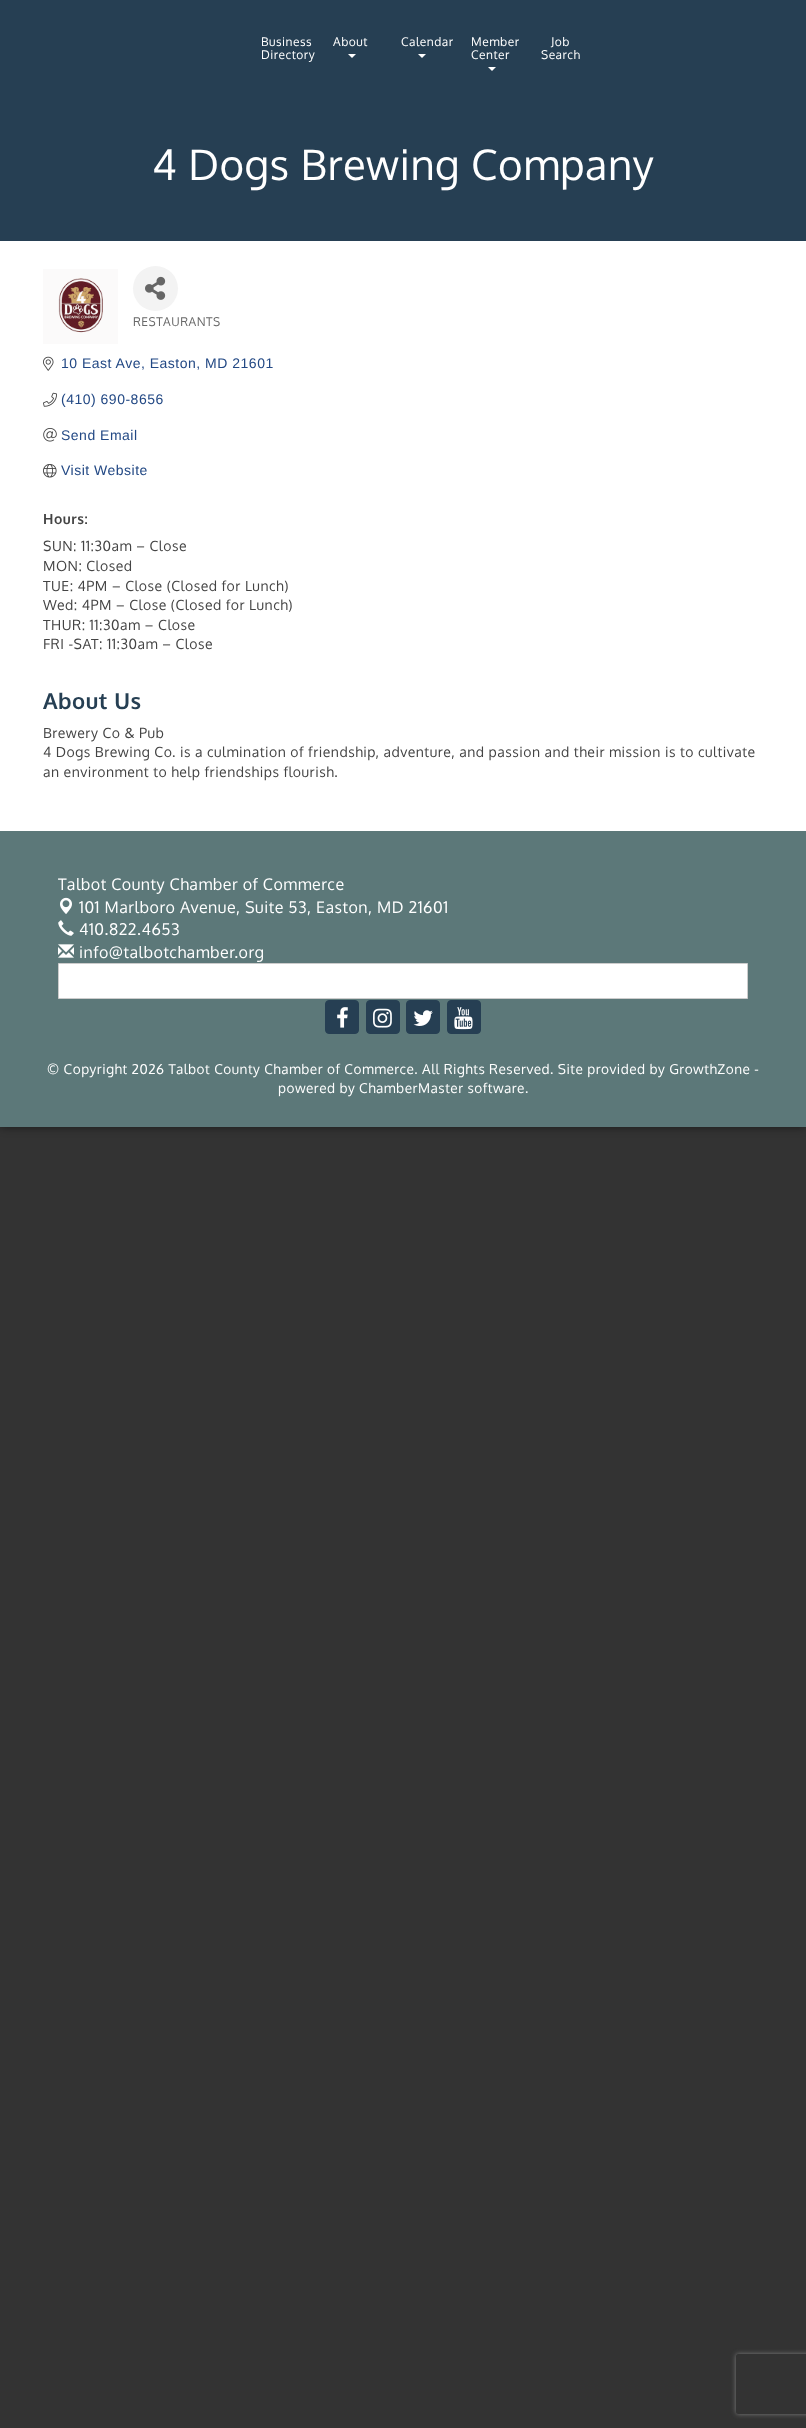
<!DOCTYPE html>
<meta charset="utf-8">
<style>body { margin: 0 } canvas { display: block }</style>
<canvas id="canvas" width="806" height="2428"></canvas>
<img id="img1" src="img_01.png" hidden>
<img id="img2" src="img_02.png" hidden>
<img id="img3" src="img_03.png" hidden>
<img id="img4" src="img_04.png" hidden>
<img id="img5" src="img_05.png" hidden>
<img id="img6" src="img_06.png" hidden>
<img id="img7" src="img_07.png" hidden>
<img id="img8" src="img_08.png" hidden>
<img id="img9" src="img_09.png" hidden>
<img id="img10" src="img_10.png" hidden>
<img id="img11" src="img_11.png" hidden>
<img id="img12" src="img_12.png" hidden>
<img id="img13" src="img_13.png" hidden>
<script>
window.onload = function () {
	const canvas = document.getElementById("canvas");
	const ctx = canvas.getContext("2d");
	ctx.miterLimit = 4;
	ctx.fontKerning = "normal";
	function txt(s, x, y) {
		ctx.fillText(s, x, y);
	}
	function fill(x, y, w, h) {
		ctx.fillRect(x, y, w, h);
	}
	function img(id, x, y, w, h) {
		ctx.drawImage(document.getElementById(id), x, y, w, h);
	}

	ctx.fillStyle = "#333333";
	fill(0, 0, 806, 2428);
	ctx.fillStyle = "rgba(0, 0, 0, 0.5)";
	ctx.filter = "blur(5px)";
	ctx.beginPath();
	ctx.rect(0, 0, 806, 1127);
	ctx.fill();
	ctx.filter = "none";
	ctx.fillStyle = "#263F53";
	fill(0, 0, 806, 241);
	ctx.fillStyle = "#FFFFFF";
	ctx.beginPath();
	ctx.moveTo(348, 54);
	ctx.lineTo(356, 54);
	ctx.lineTo(352, 58);
	ctx.closePath();
	ctx.fill();
	ctx.beginPath();
	ctx.moveTo(418, 54);
	ctx.lineTo(426, 54);
	ctx.lineTo(422, 58);
	ctx.closePath();
	ctx.fill();
	ctx.beginPath();
	ctx.moveTo(488, 67);
	ctx.lineTo(496, 67);
	ctx.lineTo(492, 71);
	ctx.closePath();
	ctx.fill();
	fill(0, 241, 806, 590);
	img("img1", 43, 269, 75, 75);
	ctx.fillStyle = "#F3F3F3";
	ctx.beginPath();
	ctx.arc(155.5, 288.5, 22.5, 0, Math.PI * 2);
	ctx.fill();
	img("img2", 145, 276, 21, 24);
	img("img3", 43, 356, 11, 15);
	img("img4", 43, 392, 14, 15);
	img("img5", 43, 428, 14, 14);
	img("img6", 43, 464, 14, 14);
	ctx.fillStyle = "#5C7879";
	fill(0, 831, 806, 296);
	img("img7", 60, 897, 12, 17);
	img("img8", 58, 920, 16, 16);
	img("img9", 58, 944, 16, 14);
	ctx.fillStyle = "#FFFFFF";
	ctx.beginPath();
	ctx.rect(58.5, 963.5, 689, 35);
	ctx.fill();
	ctx.strokeStyle = "#CCCCCC";
	ctx.stroke();
	ctx.fillStyle = "#263F53";
	ctx.beginPath();
	ctx.roundRect(325.5, 1000.5, 33, 33, 3.5);
	ctx.fill();
	ctx.strokeStyle = "#263F53";
	ctx.stroke();
	img("img10", 337, 1007, 11, 21);
	ctx.beginPath();
	ctx.roundRect(366.5, 1000.5, 33, 33, 3.5);
	ctx.fill();
	ctx.stroke();
	img("img11", 373, 1008, 19, 20);
	ctx.beginPath();
	ctx.roundRect(406.5, 1000.5, 33, 33, 3.5);
	ctx.fill();
	ctx.stroke();
	img("img12", 413, 1010, 20, 16);
	ctx.beginPath();
	ctx.roundRect(447.5, 1000.5, 33, 33, 3.5);
	ctx.fill();
	ctx.stroke();
	img("img13", 454, 1007, 19, 23);
	ctx.save();
	ctx.beginPath();
	ctx.moveTo(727, 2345);
	ctx.lineTo(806, 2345);
	ctx.lineTo(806, 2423);
	ctx.lineTo(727, 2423);
	ctx.closePath();
	ctx.moveTo(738, 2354);
	ctx.lineTo(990, 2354);
	ctx.bezierCurveTo(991, 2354, 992, 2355, 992, 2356);
	ctx.lineTo(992, 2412);
	ctx.bezierCurveTo(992, 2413, 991, 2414, 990, 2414);
	ctx.lineTo(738, 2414);
	ctx.bezierCurveTo(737, 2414, 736, 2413, 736, 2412);
	ctx.lineTo(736, 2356);
	ctx.bezierCurveTo(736, 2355, 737, 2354, 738, 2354);
	ctx.closePath();
	ctx.clip("evenodd");
	ctx.fillStyle = "#808080";
	ctx.filter = "blur(2.5px)";
	ctx.beginPath();
	ctx.roundRect(736, 2354, 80, 60, 2);
	ctx.fill();
	ctx.filter = "none";
	ctx.restore();
	ctx.letterSpacing = "0.5px";
	ctx.font = "12px Oxygen";
	ctx.fillStyle = "#FFFFFF";
	txt("Business", 261, 46);
	txt("Directory", 261, 59);
	txt("About", 333, 46);
	txt("Calendar", 401, 46);
	txt("Member", 471, 46);
	txt("Center", 471, 59);
	txt("Job", 551, 46);
	txt("Search", 541, 59);
	ctx.font = "42px Oxygen";
	txt("4 Dogs Brewing Company", 152, 180);
	ctx.font = "12px Oxygen";
	ctx.fillStyle = "#696969";
	txt("RESTAURANTS", 133, 326);
	ctx.font = "14px Liberation Sans";
	ctx.fillStyle = "#224884";
	txt("10 East Ave, Easton, MD 21601", 61, 368);
	txt("(410) 690-8656", 61, 404);
	txt("Send Email", 61, 440);
	txt("Visit Website", 61, 475);
	ctx.font = "bold 14px Oxygen";
	ctx.fillStyle = "#444444";
	txt("Hours:", 43, 524);
	ctx.font = "14px Oxygen";
	txt("SUN: 11:30am – Close", 43, 551);
	txt("MON: Closed", 43, 571);
	txt("TUE: 4PM – Close (Closed for Lunch)", 43, 591);
	txt("Wed: 4PM – Close (Closed for Lunch)", 43, 610);
	txt("THUR: 11:30am – Close", 43, 630);
	txt("FRI -SAT: 11:30am – Close", 43, 649);
	ctx.font = "bold 22px Oxygen";
	ctx.fillStyle = "#263F53";
	txt("About Us", 43, 709);
	ctx.font = "14px Oxygen";
	ctx.fillStyle = "#444444";
	txt("Brewery Co & Pub", 43, 738);
	txt("4 Dogs Brewing Co. is a culmination of friendship, adventure, and passion and their mission is to cultivate", 43, 757);
	txt("an environment to help friendships flourish.", 43, 777);
	ctx.font = "16px Oxygen";
	ctx.fillStyle = "#FFFFFF";
	txt("Talbot County Chamber of Commerce", 58, 890);
	txt("101 Marlboro Avenue, Suite 53, Easton, MD 21601", 79, 913);
	txt("410.822.4653", 79, 935);
	txt("info@talbotchamber.org", 79, 958);
	ctx.font = "13.6px Oxygen";
	txt("© Copyright 2026 Talbot County Chamber of Commerce. All Rights Reserved. Site provided by GrowthZone -", 47, 1074);
	txt("powered by ChamberMaster software.", 278, 1093);
};
</script>
